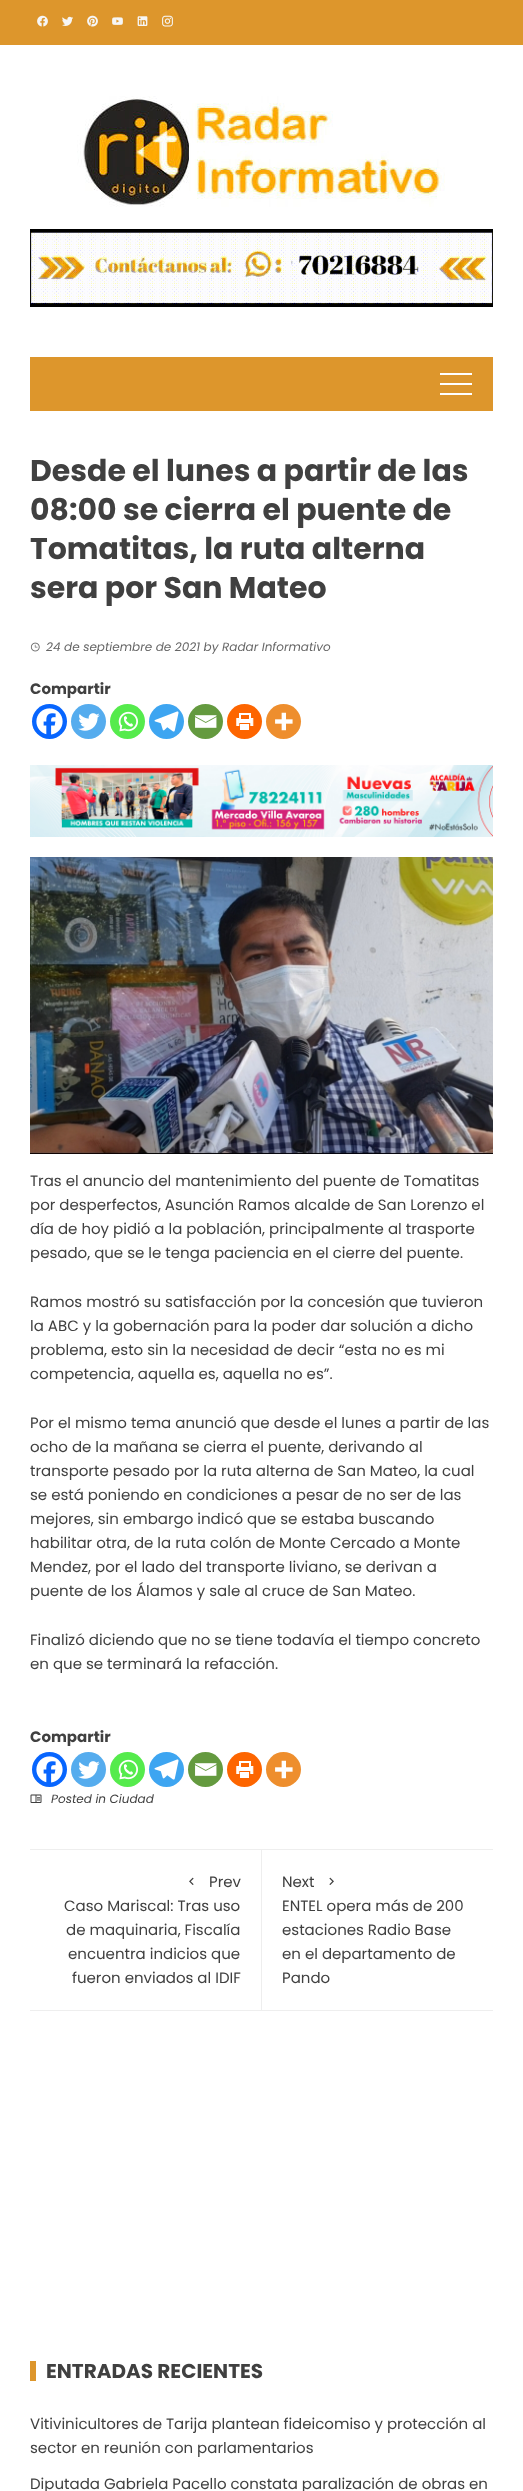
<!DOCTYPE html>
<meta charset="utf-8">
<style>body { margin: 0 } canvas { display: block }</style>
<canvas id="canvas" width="523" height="2491"></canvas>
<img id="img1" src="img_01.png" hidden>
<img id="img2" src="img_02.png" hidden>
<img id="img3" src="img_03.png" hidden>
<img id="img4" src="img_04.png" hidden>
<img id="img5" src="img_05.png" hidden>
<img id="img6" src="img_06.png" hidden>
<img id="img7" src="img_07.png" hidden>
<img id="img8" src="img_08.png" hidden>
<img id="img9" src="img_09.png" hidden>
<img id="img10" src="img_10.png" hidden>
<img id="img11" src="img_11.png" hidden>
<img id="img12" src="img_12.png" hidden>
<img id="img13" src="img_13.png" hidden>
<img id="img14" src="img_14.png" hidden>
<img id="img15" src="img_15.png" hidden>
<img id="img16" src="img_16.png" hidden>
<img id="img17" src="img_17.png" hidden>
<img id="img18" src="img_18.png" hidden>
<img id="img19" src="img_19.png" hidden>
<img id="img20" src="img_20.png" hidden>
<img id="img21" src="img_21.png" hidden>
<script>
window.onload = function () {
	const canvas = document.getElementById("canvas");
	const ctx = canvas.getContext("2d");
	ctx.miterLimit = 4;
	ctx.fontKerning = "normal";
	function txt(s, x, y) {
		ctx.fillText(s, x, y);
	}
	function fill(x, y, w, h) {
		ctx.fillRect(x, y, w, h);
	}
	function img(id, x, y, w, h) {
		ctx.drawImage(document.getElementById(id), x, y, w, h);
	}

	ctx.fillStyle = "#FFFFFF";
	fill(0, 0, 523, 2491);
	ctx.fillStyle = "#DD962C";
	fill(0, 0, 523, 45);
	img("img1", 37, 15, 11, 12);
	img("img2", 62, 16, 11, 10);
	img("img3", 87, 15, 11, 12);
	img("img4", 112, 17, 11, 8);
	img("img5", 137, 16, 11, 10);
	img("img6", 162, 15, 11, 12);
	img("img7", 77, 96, 368, 111);
	img("img8", 30, 229, 463, 78);
	fill(30, 357, 463, 54);
	ctx.fillStyle = "#FFFFFF";
	fill(440, 373, 32, 2);
	fill(440, 393, 32, 2);
	fill(440, 383, 32, 2);
	img("img9", 30, 642, 10, 10);
	ctx.fillStyle = "#0765FE";
	ctx.beginPath();
	ctx.arc(49.5, 721.5, 17.5, 0, Math.PI * 2);
	ctx.fill();
	img("img10", 36, 708, 27, 27);
	ctx.fillStyle = "#55ACEE";
	ctx.beginPath();
	ctx.arc(88.5, 721.5, 17.5, 0, Math.PI * 2);
	ctx.fill();
	img("img11", 78, 713, 22, 18);
	ctx.fillStyle = "#55EB4C";
	ctx.beginPath();
	ctx.arc(127.5, 721.5, 17.5, 0, Math.PI * 2);
	ctx.fill();
	img("img12", 118, 711, 20, 21);
	ctx.fillStyle = "#3DA5F1";
	ctx.beginPath();
	ctx.arc(166.5, 721.5, 17.5, 0, Math.PI * 2);
	ctx.fill();
	img("img13", 154, 711, 25, 21);
	ctx.fillStyle = "#649A3F";
	ctx.beginPath();
	ctx.arc(205.5, 721.5, 17.5, 0, Math.PI * 2);
	ctx.fill();
	img("img14", 195, 715, 22, 13);
	ctx.fillStyle = "#FD6500";
	ctx.beginPath();
	ctx.arc(244.5, 721.5, 17.5, 0, Math.PI * 2);
	ctx.fill();
	img("img15", 236, 713, 18, 17);
	ctx.fillStyle = "#EE8E2D";
	ctx.beginPath();
	ctx.arc(283.5, 721.5, 17.5, 0, Math.PI * 2);
	ctx.fill();
	img("img16", 275, 712, 18, 19);
	img("img17", 30, 765, 463, 72);
	img("img18", 30, 857, 463, 297);
	ctx.fillStyle = "#0765FE";
	ctx.beginPath();
	ctx.arc(49.5, 1769.5, 17.5, 0, Math.PI * 2);
	ctx.fill();
	img("img10", 36, 1756, 27, 27);
	ctx.fillStyle = "#55ACEE";
	ctx.beginPath();
	ctx.arc(88.5, 1769.5, 17.5, 0, Math.PI * 2);
	ctx.fill();
	img("img11", 78, 1761, 22, 18);
	ctx.fillStyle = "#55EB4C";
	ctx.beginPath();
	ctx.arc(127.5, 1769.5, 17.5, 0, Math.PI * 2);
	ctx.fill();
	img("img12", 118, 1759, 20, 21);
	ctx.fillStyle = "#3DA5F1";
	ctx.beginPath();
	ctx.arc(166.5, 1769.5, 17.5, 0, Math.PI * 2);
	ctx.fill();
	img("img13", 154, 1759, 25, 21);
	ctx.fillStyle = "#649A3F";
	ctx.beginPath();
	ctx.arc(205.5, 1769.5, 17.5, 0, Math.PI * 2);
	ctx.fill();
	img("img14", 195, 1763, 22, 13);
	ctx.fillStyle = "#FD6500";
	ctx.beginPath();
	ctx.arc(244.5, 1769.5, 17.5, 0, Math.PI * 2);
	ctx.fill();
	img("img15", 236, 1761, 18, 17);
	ctx.fillStyle = "#EE8E2D";
	ctx.beginPath();
	ctx.arc(283.5, 1769.5, 17.5, 0, Math.PI * 2);
	ctx.fill();
	img("img16", 275, 1760, 18, 19);
	img("img19", 30, 1794, 12, 9);
	ctx.fillStyle = "#EEEEEE";
	fill(30, 1849, 463, 1);
	fill(30, 2010, 463, 1);
	fill(261, 1850, 1, 160);
	img("img20", 189, 1877, 5, 8);
	img("img21", 329, 1877, 5, 8);
	ctx.fillStyle = "#DD962C";
	fill(30, 2361, 6, 20);
	ctx.font = "bold 30px Poppins";
	ctx.fillStyle = "#404040";
	txt("Desde el lunes a partir de las", 30, 481);
	txt("08:00 se cierra el puente de", 30, 520);
	txt("Tomatitas, la ruta alterna", 30, 559);
	txt("sera por San Mateo", 30, 598);
	ctx.font = "italic 12px Poppins";
	ctx.fillStyle = "#666666";
	txt("24 de septiembre de 2021 by Radar Informativo", 46, 651);
	ctx.font = "bold 15px Poppins";
	ctx.fillStyle = "#404040";
	txt("Compartir", 30, 694);
	ctx.font = "15px Poppins";
	txt("Tras el anuncio del mantenimiento del puente de Tomatitas", 30, 1186);
	txt("por desperfectos, Asunción Ramos alcalde de San Lorenzo el", 30, 1210);
	txt("día de hoy pidió a la población, principalmente al trasporte", 30, 1234);
	txt("pesado, que se le tenga paciencia en el cierre del puente.", 30, 1258);
	txt("Ramos mostró su satisfacción por la concesión que tuvieron", 30, 1307);
	txt("la ABC y la gobernación para la poder dar solución a dicho", 30, 1331);
	txt("problema, esto sin la necesidad de decir “esta no es mi", 30, 1355);
	txt("competencia, aquella es, aquella no es”.", 30, 1379);
	txt("Por el mismo tema anunció que desde el lunes a partir de las", 30, 1428);
	txt("ocho de la mañana se cierra el puente, derivando al", 30, 1452);
	txt("transporte pesado por la ruta alterna de San Mateo, la cual", 30, 1476);
	txt("se está poniendo en condiciones a pesar de no ser de las", 30, 1500);
	txt("mejores, sin embargo indicó que se estaba buscando", 30, 1524);
	txt("habilitar otra, de la ruta colón de Monte Cercado a Monte", 30, 1548);
	txt("Mendez, por el lado del transporte liviano, se derivan a", 30, 1572);
	txt("puente de los Álamos y sale al cruce de San Mateo.", 30, 1596);
	txt("Finalizó diciendo que no se tiene todavía el tiempo concreto", 30, 1645);
	txt("en que se terminará la refacción.", 30, 1669);
	ctx.font = "bold 15px Poppins";
	txt("Compartir", 30, 1742);
	ctx.font = "italic 12px Poppins";
	txt("Posted in Ciudad", 51, 1803);
	ctx.font = "15px Poppins";
	txt("Prev", 209, 1887);
	txt("Caso Mariscal: Tras uso", 64, 1911);
	txt("de maquinaria, Fiscalía", 66, 1935);
	txt("encuentra indicios que", 68, 1959);
	txt("fueron enviados al IDIF", 72, 1983);
	txt("Next", 282, 1887);
	txt("ENTEL opera más de 200", 282, 1911);
	txt("estaciones Radio Base", 282, 1935);
	txt("en el departamento de", 282, 1959);
	txt("Pando", 282, 1983);
	ctx.font = "bold 20px Poppins";
	txt("ENTRADAS RECIENTES", 46, 2378);
	ctx.font = "15px Poppins";
	txt("Vitivinicultores de Tarija plantean fideicomiso y protección al", 30, 2429);
	txt("sector en reunión con parlamentarios", 30, 2453);
	txt("Diputada Gabriela Pacello constata paralización de obras en", 30, 2489);
};
</script>
